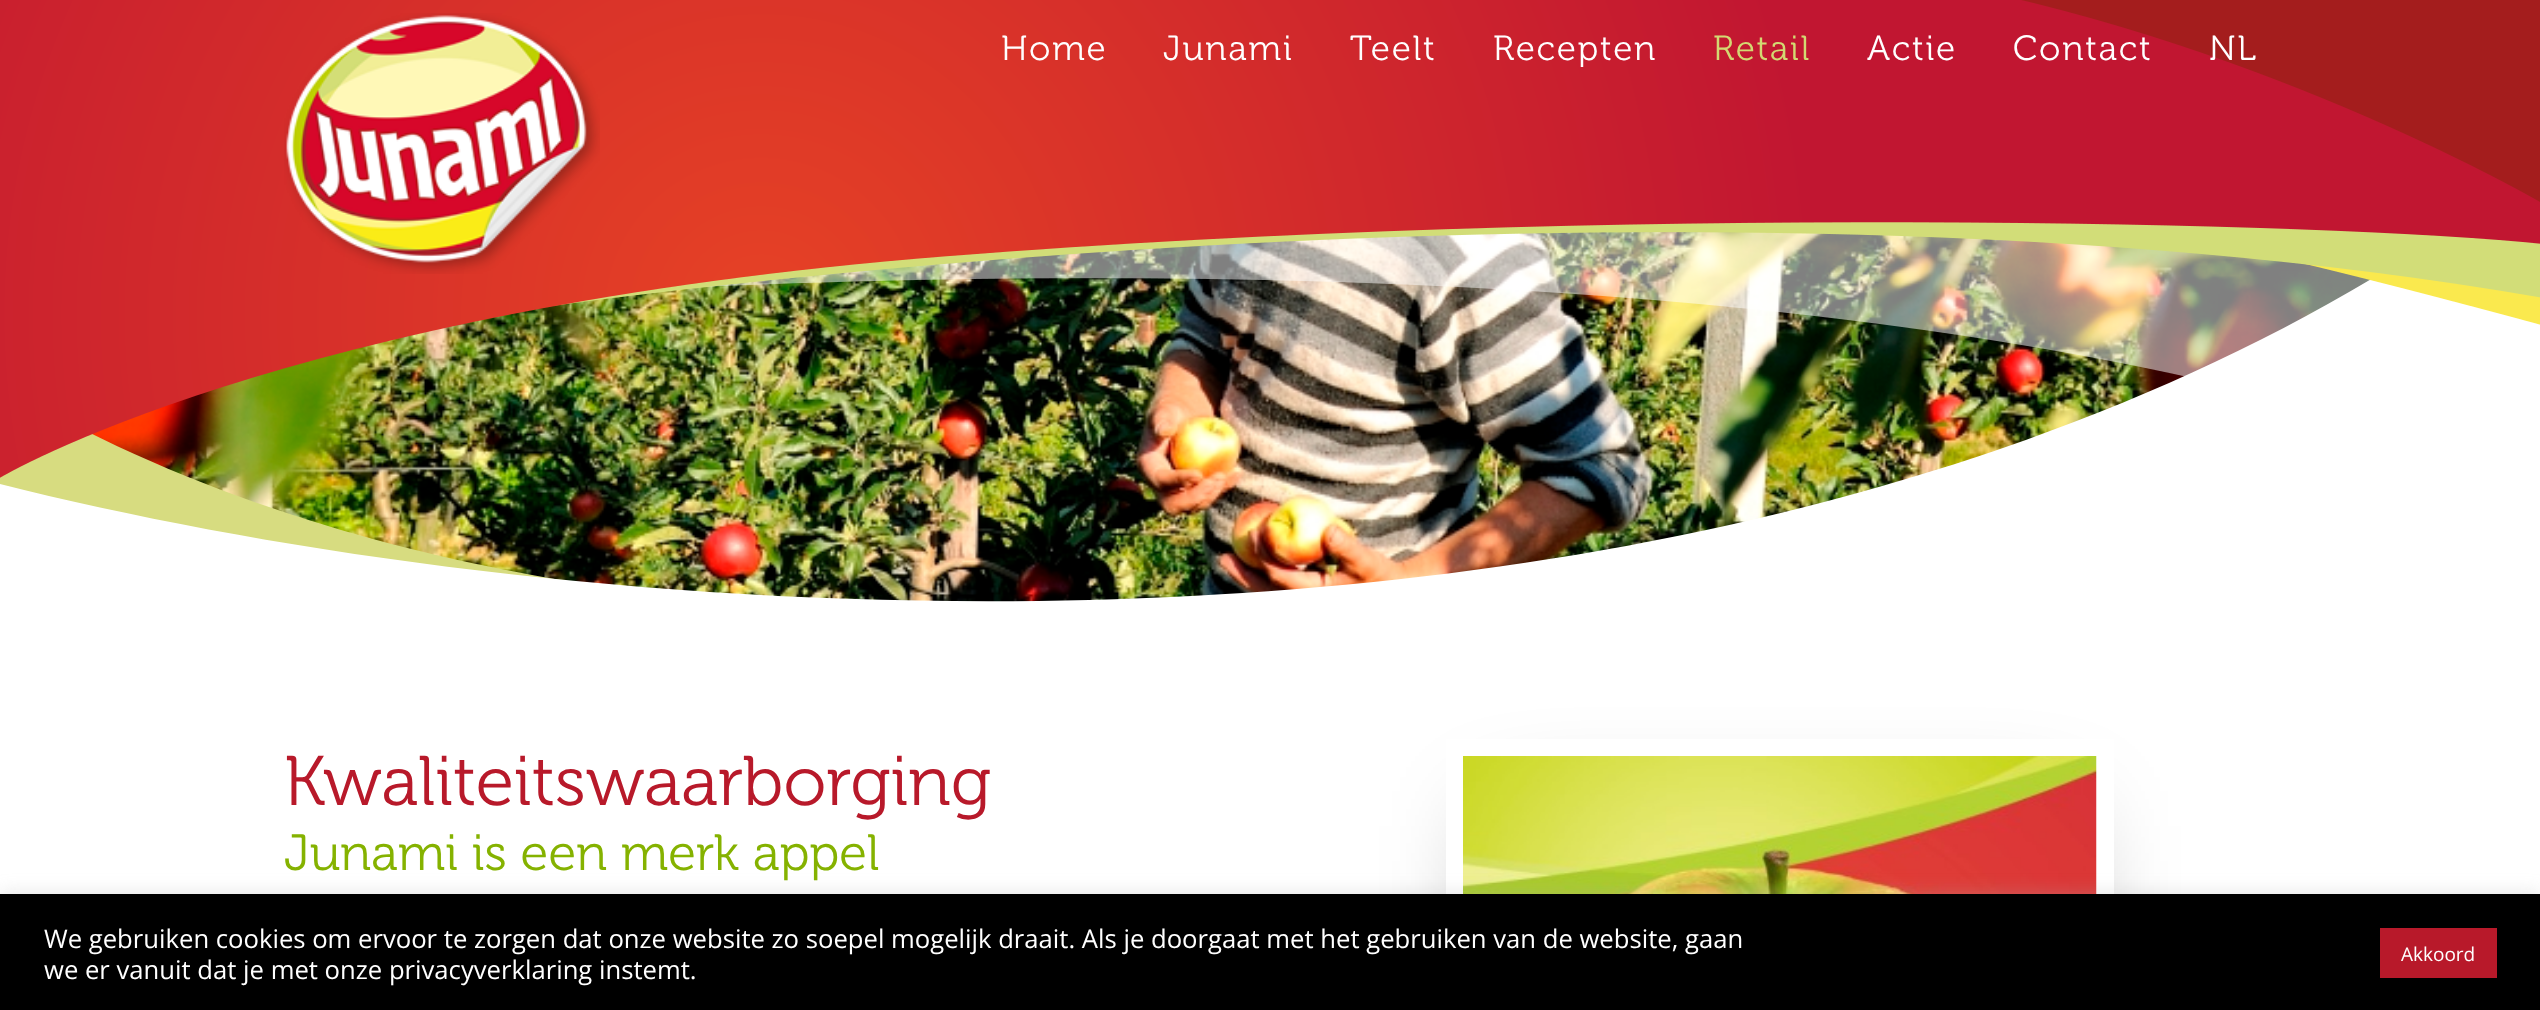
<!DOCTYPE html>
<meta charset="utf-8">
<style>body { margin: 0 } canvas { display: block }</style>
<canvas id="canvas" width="2540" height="1010"></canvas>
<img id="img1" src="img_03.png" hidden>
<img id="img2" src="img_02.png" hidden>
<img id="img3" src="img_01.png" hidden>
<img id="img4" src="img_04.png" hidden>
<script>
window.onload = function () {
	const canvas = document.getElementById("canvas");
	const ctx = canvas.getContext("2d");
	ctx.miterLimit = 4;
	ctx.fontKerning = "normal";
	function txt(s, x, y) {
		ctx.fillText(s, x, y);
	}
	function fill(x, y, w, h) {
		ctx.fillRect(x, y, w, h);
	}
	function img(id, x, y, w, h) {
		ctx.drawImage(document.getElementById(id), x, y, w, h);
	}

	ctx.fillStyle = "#FFFFFF";
	fill(0, 0, 2540, 1010);
	img("img1", 92, 232, 2278, 370);
	ctx.save();
	ctx.beginPath();
	ctx.rect(0, 165, 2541, 448);
	ctx.clip();
	ctx.fillStyle = "#D7DC80";
	ctx.beginPath();
	ctx.moveTo(0, 522);
	ctx.bezierCurveTo(0, 522, 337, 637, 925, 609);
	ctx.bezierCurveTo(925, 609, 411, 630, 0, 384);
	ctx.closePath();
	ctx.fill();
	ctx.fillStyle = "#FFFFFF";
	ctx.beginPath();
	ctx.moveTo(0, 484);
	ctx.bezierCurveTo(615, 639, 1811, 729, 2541, 164);
	ctx.lineTo(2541, 614);
	ctx.lineTo(0, 614);
	ctx.closePath();
	ctx.fill();
	ctx.restore();
	img("img2", 0, 0, 2540, 478);
	img("img3", 284, 13, 316, 261);
	ctx.save();
	ctx.beginPath();
	ctx.moveTo(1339, 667);
	ctx.lineTo(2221, 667);
	ctx.lineTo(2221, 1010);
	ctx.lineTo(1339, 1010);
	ctx.closePath();
	ctx.moveTo(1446, 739);
	ctx.lineTo(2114, 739);
	ctx.lineTo(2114, 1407);
	ctx.lineTo(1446, 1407);
	ctx.closePath();
	ctx.clip("evenodd");
	ctx.fillStyle = "rgba(0, 0, 0, 0.45)";
	ctx.filter = "blur(52.5px)";
	ctx.beginPath();
	ctx.rect(1498, 826, 564, 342);
	ctx.fill();
	ctx.filter = "none";
	ctx.restore();
	img("img4", 1463, 756, 634, 138);
	ctx.fillStyle = "rgba(172, 171, 171, 0.3)";
	ctx.filter = "blur(9px)";
	ctx.beginPath();
	ctx.rect(0, 893, 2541, 117);
	ctx.fill();
	ctx.filter = "none";
	ctx.fillStyle = "#000000";
	fill(0, 894, 2540, 116);
	ctx.fillStyle = "#B8192A";
	fill(2380, 928, 117, 50);
	ctx.letterSpacing = "1.75px";
	ctx.font = "300 35px 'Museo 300'";
	ctx.fillStyle = "#FFFFFF";
	txt("Home", 1001, 60);
	txt("Junami", 1163, 60);
	txt("Teelt", 1350, 60);
	txt("Recepten", 1493, 60);
	ctx.fillStyle = "#D3D972";
	txt("Retail", 1713, 60);
	ctx.fillStyle = "#FFFFFF";
	txt("Actie", 1867, 60);
	txt("Contact", 2013, 60);
	txt("NL", 2209, 60);
	ctx.letterSpacing = "0px";
	ctx.font = "300 70px 'Museo 300'";
	ctx.fillStyle = "#B8192A";
	txt("Kwaliteitswaarborging", 284, 805);
	ctx.font = "300 50.75px 'Museo 300'";
	ctx.fillStyle = "#85B200";
	txt("Junami is een merk appel", 284, 870);
	ctx.font = "25.67px Open Sans";
	ctx.fillStyle = "#FFFFFF";
	txt("We gebruiken cookies om ervoor te zorgen dat onze website zo soepel mogelijk draait. Als je doorgaat met het gebruiken van de website, gaan", 44, 948);
	txt("we er vanuit dat je met onze privacyverklaring instemt.", 44, 979);
	ctx.font = "19px Open Sans";
	txt("Akkoord", 2401, 961);
};
</script>
